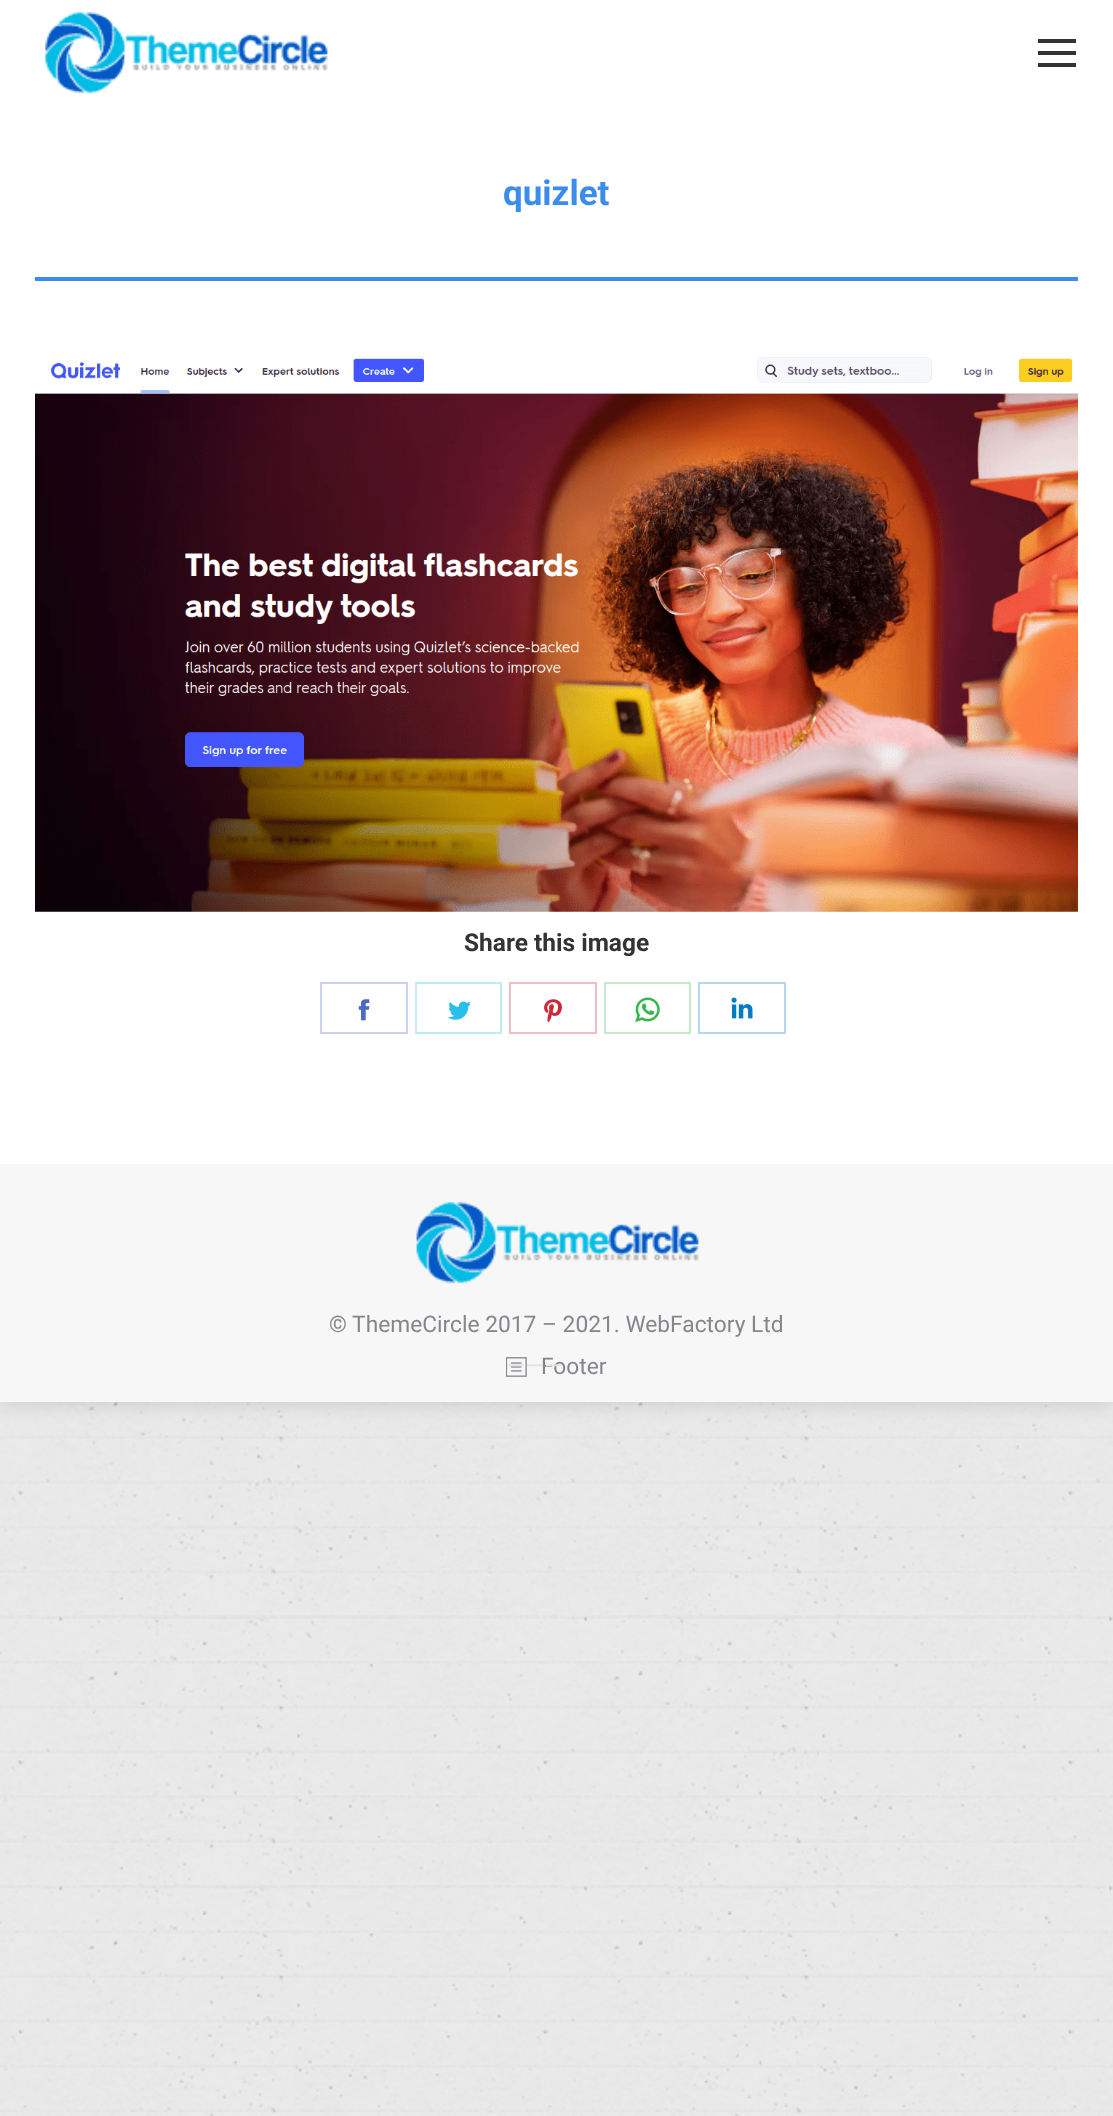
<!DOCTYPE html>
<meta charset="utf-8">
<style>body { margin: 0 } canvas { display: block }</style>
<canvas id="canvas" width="1113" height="2116"></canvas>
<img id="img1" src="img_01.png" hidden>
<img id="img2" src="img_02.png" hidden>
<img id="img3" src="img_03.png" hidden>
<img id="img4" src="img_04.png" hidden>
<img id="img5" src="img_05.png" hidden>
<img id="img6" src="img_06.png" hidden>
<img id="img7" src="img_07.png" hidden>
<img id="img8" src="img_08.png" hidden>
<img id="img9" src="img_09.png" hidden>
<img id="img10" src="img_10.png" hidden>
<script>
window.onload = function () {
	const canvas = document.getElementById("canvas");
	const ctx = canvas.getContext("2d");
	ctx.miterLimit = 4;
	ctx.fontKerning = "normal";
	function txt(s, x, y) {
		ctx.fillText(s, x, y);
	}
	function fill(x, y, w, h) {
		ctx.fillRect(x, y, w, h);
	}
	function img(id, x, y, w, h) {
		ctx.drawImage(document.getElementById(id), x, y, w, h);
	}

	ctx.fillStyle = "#FFFFFF";
	fill(0, 0, 1113, 2116);
	img("img1", 0, 1402, 1113, 714);
	ctx.fillStyle = "rgba(0, 0, 0, 0.15)";
	ctx.filter = "blur(10.5px)";
	ctx.beginPath();
	ctx.rect(0, 0, 1113, 1402);
	ctx.fill();
	ctx.filter = "none";
	ctx.fillStyle = "#FFFFFF";
	fill(0, 0, 1113, 1164);
	img("img2", 45, 11, 283, 83);
	ctx.fillStyle = "#333333";
	fill(1038, 39, 38, 4);
	fill(1038, 51, 38, 4);
	fill(1038, 63, 38, 4);
	ctx.fillStyle = "#3B8CED";
	fill(35, 277, 1043, 4);
	img("img3", 35, 357, 1043, 555);
	ctx.strokeStyle = "#C9D2EE";
	ctx.lineWidth = 2;
	ctx.strokeRect(321, 983, 86, 50);
	img("img4", 358, 999, 12, 22);
	ctx.strokeStyle = "#BFECF9";
	ctx.strokeRect(416, 983, 85, 50);
	img("img5", 448, 1001, 23, 19);
	ctx.strokeStyle = "#F1BFC2";
	ctx.strokeRect(510, 983, 86, 50);
	img("img6", 544, 999, 18, 23);
	ctx.strokeStyle = "#C3E9CA";
	ctx.strokeRect(605, 983, 85, 50);
	img("img7", 635, 997, 25, 25);
	ctx.strokeStyle = "#B3D7EE";
	ctx.strokeRect(699, 983, 86, 50);
	img("img8", 731, 997, 22, 22);
	ctx.fillStyle = "#F7F7F7";
	fill(0, 1164, 1113, 238);
	img("img9", 416, 1201, 283, 83);
	img("img10", 506, 1357, 21, 20);
	ctx.font = "bold 35px Roboto";
	ctx.fillStyle = "#3B8CED";
	txt("quizlet", 503, 205);
	ctx.font = "bold 24.5px Roboto";
	ctx.fillStyle = "#333333";
	txt("Share this image", 464, 951);
	ctx.font = "22.75px Roboto";
	ctx.fillStyle = "#85868C";
	txt("© ThemeCircle 2017 – 2021. WebFactory Ltd", 329, 1332);
	txt("Footer", 541, 1374);
	ctx.font = "24.5px Roboto";
	ctx.fillStyle = "#E3E3E4";
	txt("———", 506, 1374);
};
</script>
